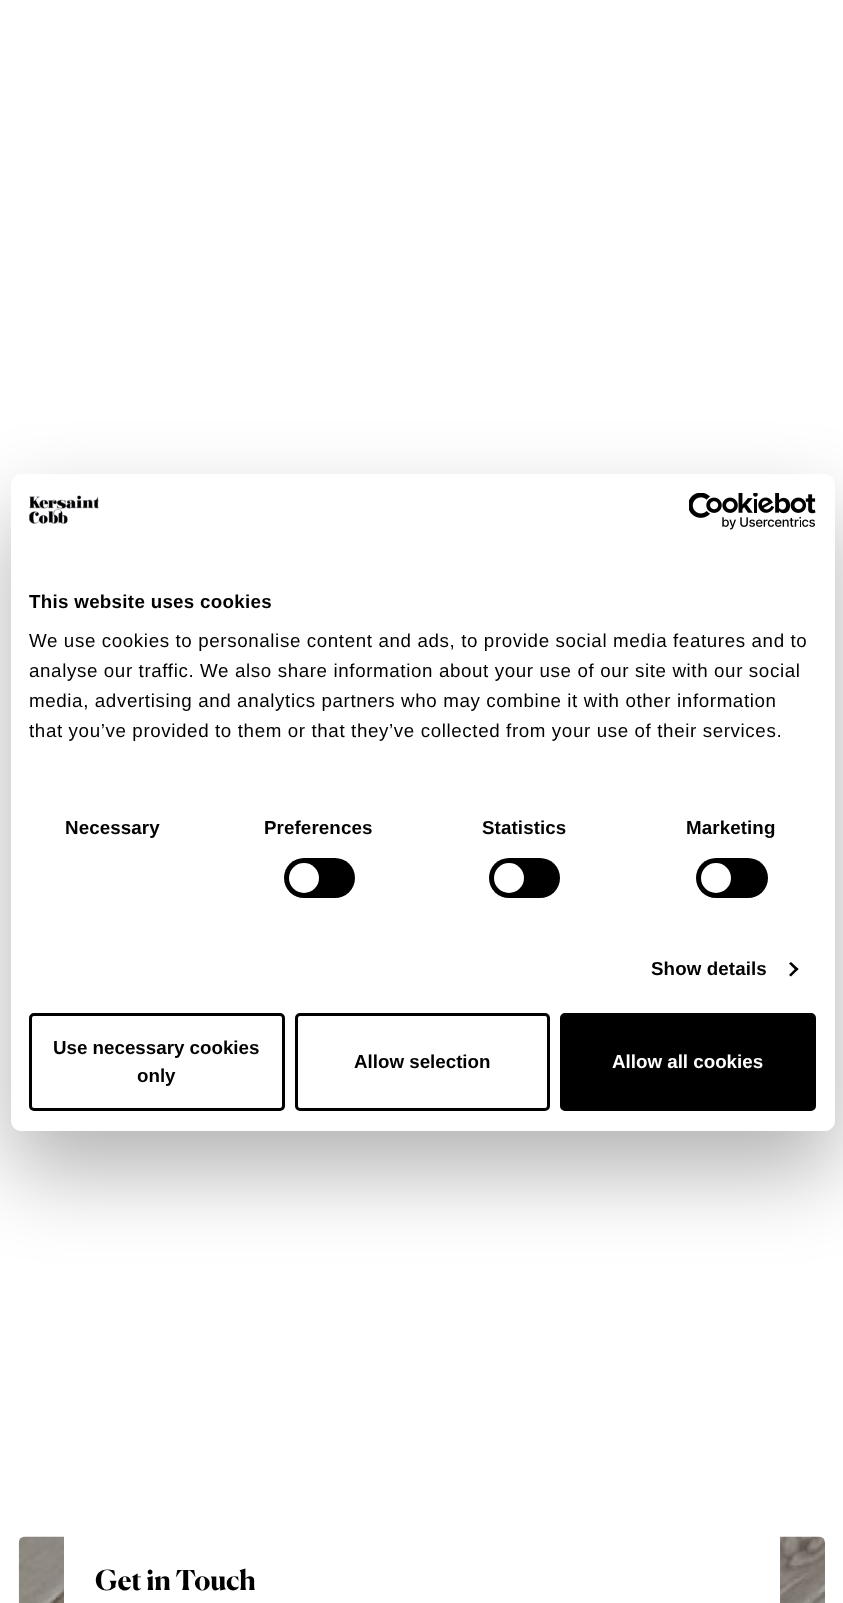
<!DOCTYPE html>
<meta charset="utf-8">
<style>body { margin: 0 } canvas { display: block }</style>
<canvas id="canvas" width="843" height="1603"></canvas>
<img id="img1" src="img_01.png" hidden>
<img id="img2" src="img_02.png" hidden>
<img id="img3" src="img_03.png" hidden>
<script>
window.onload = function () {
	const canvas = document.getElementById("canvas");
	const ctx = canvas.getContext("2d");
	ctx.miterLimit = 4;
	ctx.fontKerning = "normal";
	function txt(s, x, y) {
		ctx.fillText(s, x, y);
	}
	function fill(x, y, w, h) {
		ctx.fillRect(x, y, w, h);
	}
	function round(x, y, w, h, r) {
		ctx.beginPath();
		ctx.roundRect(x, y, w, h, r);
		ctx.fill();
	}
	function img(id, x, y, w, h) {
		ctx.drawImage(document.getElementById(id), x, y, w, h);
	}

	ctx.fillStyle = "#FFFFFF";
	fill(0, 0, 843, 1603);
	ctx.fillStyle = "rgba(0, 0, 0, 0.3)";
	ctx.filter = "blur(42.5px)";
	ctx.beginPath();
	ctx.roundRect(11, 514, 824, 657, 10);
	ctx.fill();
	ctx.filter = "none";
	ctx.fillStyle = "#FFFFFF";
	round(11, 474, 824, 657, 10);
	img("img1", 29, 495, 70, 29);
	img("img2", 689, 493, 127, 37);
	ctx.fillStyle = "#000000";
	round(284, 858, 71, 40, 20);
	ctx.fillStyle = "#FFFFFF";
	ctx.beginPath();
	ctx.arc(304, 878, 15, 0, Math.PI * 2);
	ctx.fill();
	ctx.fillStyle = "#000000";
	round(489, 858, 71, 40, 20);
	ctx.fillStyle = "#FFFFFF";
	ctx.beginPath();
	ctx.arc(509, 878, 15, 0, Math.PI * 2);
	ctx.fill();
	ctx.fillStyle = "#000000";
	round(696, 858, 72, 40, 20);
	ctx.fillStyle = "#FFFFFF";
	ctx.beginPath();
	ctx.arc(716, 878, 15, 0, Math.PI * 2);
	ctx.fill();
	ctx.fillStyle = "#000000";
	ctx.beginPath();
	ctx.moveTo(791, 962);
	ctx.lineTo(798.5, 969);
	ctx.lineTo(796.5, 971);
	ctx.lineTo(789, 963.5);
	ctx.closePath();
	ctx.fill();
	ctx.beginPath();
	ctx.moveTo(796.5, 967.5);
	ctx.lineTo(798.5, 969);
	ctx.lineTo(791, 976.5);
	ctx.lineTo(789, 975);
	ctx.closePath();
	ctx.fill();
	ctx.save();
	ctx.beginPath();
	ctx.roundRect(11, 474, 824, 657, 10);
	ctx.clip();
	ctx.fillStyle = "#FFFFFF";
	fill(11, 1130, 824, 1);
	ctx.restore();
	ctx.beginPath();
	ctx.roundRect(30.5, 1014.5, 253, 95, 3.5);
	ctx.strokeStyle = "#000000";
	ctx.lineWidth = 3;
	ctx.stroke();
	ctx.beginPath();
	ctx.roundRect(296.5, 1014.5, 252, 95, 3.5);
	ctx.stroke();
	ctx.beginPath();
	ctx.roundRect(561.5, 1014.5, 253, 95, 3.5);
	ctx.fill();
	ctx.stroke();
	img("img3", 18, 1536, 807, 67);
	ctx.fillStyle = "#FFFFFF";
	fill(64, 1536, 716, 67);
	ctx.letterSpacing = "0.3px";
	ctx.font = "bold 18.75px Liberation Sans";
	ctx.fillStyle = "#000000";
	txt("This website uses cookies", 29, 608);
	ctx.letterSpacing = "0.62px";
	ctx.font = "18.75px Liberation Sans";
	txt("We use cookies to personalise content and ads, to provide social media features and to", 29, 647);
	txt("analyse our traffic. We also share information about your use of our site with our social", 29, 677);
	txt("media, advertising and analytics partners who may combine it with other information", 29, 707);
	txt("that you’ve provided to them or that they’ve collected from your use of their services.", 29, 737);
	ctx.letterSpacing = "0.1px";
	ctx.font = "bold 18.75px Liberation Sans";
	txt("Necessary", 65, 834);
	txt("Preferences", 264, 834);
	txt("Statistics", 482, 834);
	txt("Marketing", 686, 834);
	txt("Show details", 651, 975);
	ctx.letterSpacing = "0px";
	txt("Use necessary cookies", 53, 1054);
	txt("only", 137, 1082);
	txt("Allow selection", 354, 1068);
	ctx.fillStyle = "#FFFFFF";
	txt("Allow all cookies", 612, 1068);
	ctx.font = "bold 27.5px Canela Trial";
	ctx.fillStyle = "#000000";
	txt("Get in Touch", 95, 1590);
};
</script>
